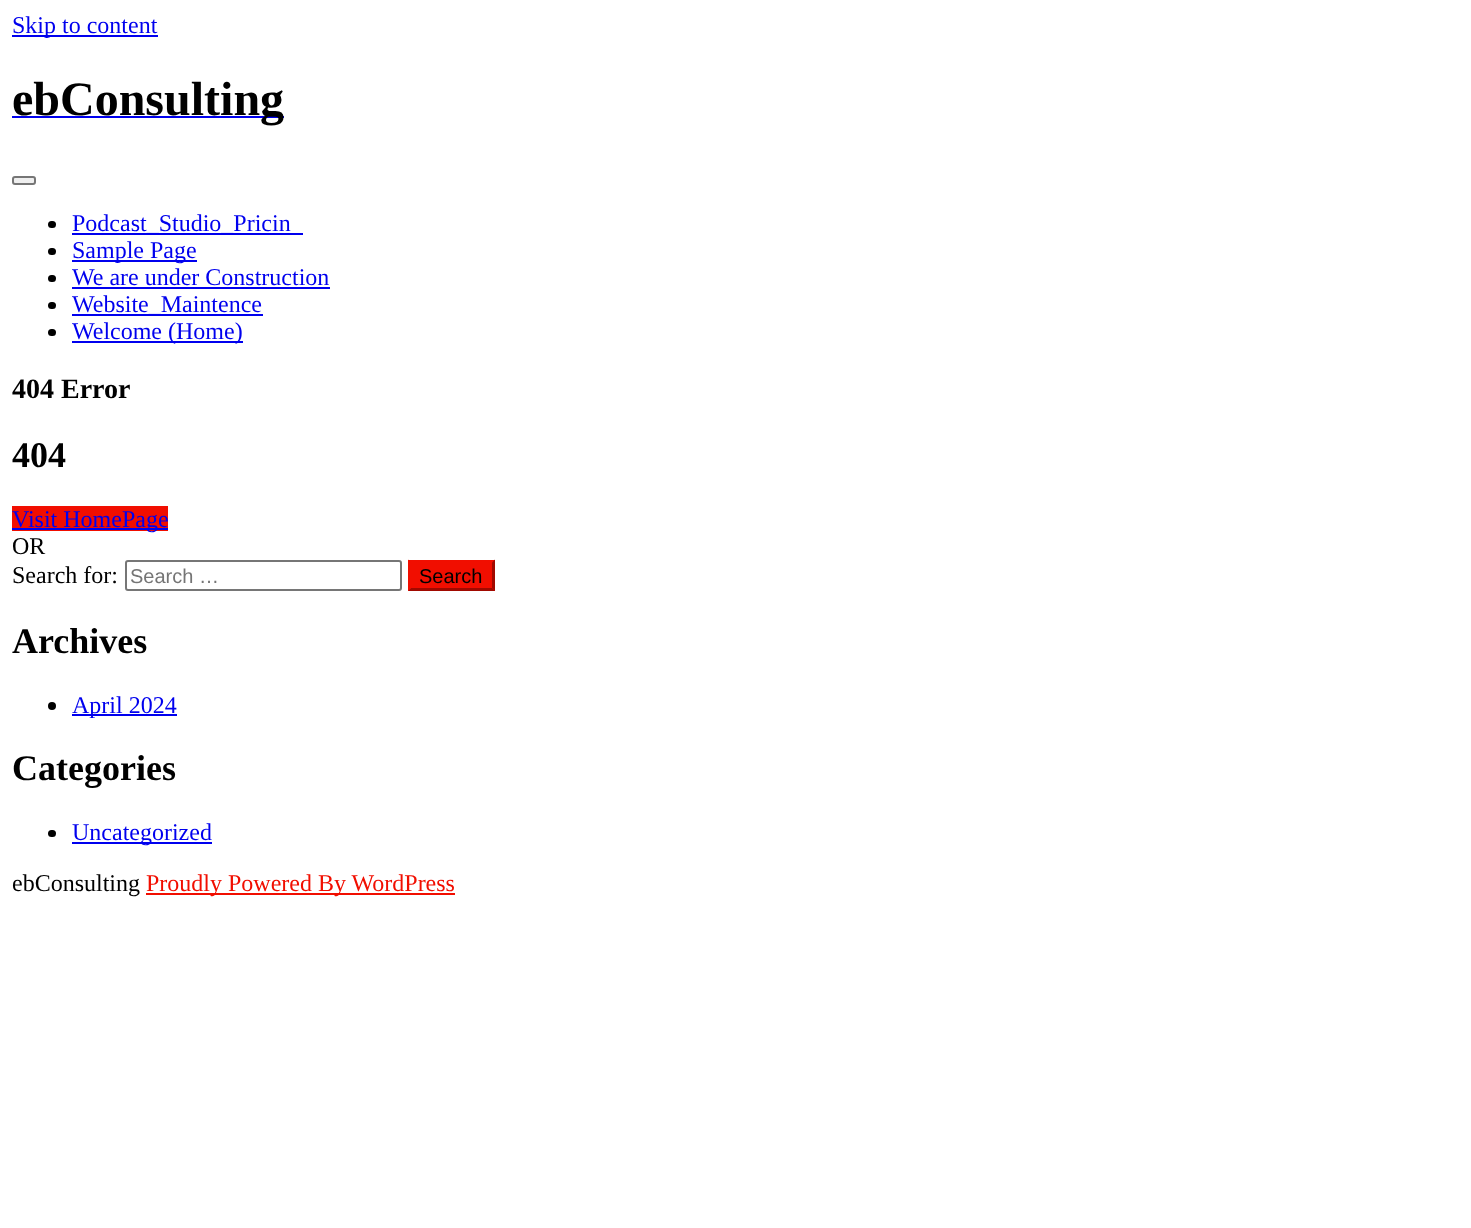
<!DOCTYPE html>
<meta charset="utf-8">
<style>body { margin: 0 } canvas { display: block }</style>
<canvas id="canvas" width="1471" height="1228"></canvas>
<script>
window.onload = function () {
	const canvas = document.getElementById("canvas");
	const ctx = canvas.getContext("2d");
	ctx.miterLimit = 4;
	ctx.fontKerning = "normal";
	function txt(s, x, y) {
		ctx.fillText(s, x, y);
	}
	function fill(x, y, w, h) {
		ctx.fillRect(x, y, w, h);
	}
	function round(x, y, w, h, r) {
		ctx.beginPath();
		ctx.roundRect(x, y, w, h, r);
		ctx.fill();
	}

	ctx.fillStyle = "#FFFFFF";
	fill(0, 0, 1471, 1228);
	ctx.fillStyle = "#0000EE";
	fill(12, 35, 146, 2);
	fill(12, 116, 272, 2);
	ctx.fillStyle = "#EFEFEF";
	ctx.beginPath();
	ctx.roundRect(13, 177, 22, 7, 2);
	ctx.fill();
	ctx.strokeStyle = "#767676";
	ctx.lineWidth = 2;
	ctx.stroke();
	ctx.fillStyle = "#000000";
	round(48, 221, 8, 7, 3.5);
	ctx.fillStyle = "#0000EE";
	fill(72, 233, 231, 2);
	ctx.fillStyle = "#000000";
	round(48, 248, 8, 7, 3.5);
	ctx.fillStyle = "#0000EE";
	fill(72, 260, 125, 2);
	ctx.fillStyle = "#000000";
	round(48, 275, 8, 7, 3.5);
	ctx.fillStyle = "#0000EE";
	fill(72, 287, 258, 2);
	ctx.fillStyle = "#000000";
	round(48, 302, 8, 7, 3.5);
	ctx.fillStyle = "#0000EE";
	fill(72, 314, 191, 2);
	ctx.fillStyle = "#000000";
	round(48, 329, 8, 7, 3.5);
	ctx.fillStyle = "#0000EE";
	fill(72, 341, 171, 2);
	ctx.fillStyle = "#F10E00";
	fill(12, 506, 156, 25);
	ctx.fillStyle = "#0000EE";
	fill(12, 528, 156, 2);
	ctx.beginPath();
	ctx.roundRect(126, 561, 275, 29, 2);
	ctx.stroke();
	ctx.fillStyle = "#F10E00";
	fill(408, 560, 87, 31);
	ctx.fillStyle = "#A10900";
	ctx.beginPath();
	ctx.moveTo(495, 559.5);
	ctx.lineTo(495, 591);
	ctx.lineTo(492, 588);
	ctx.lineTo(492, 562.5);
	ctx.closePath();
	ctx.fill();
	ctx.beginPath();
	ctx.moveTo(495, 591);
	ctx.lineTo(408, 591);
	ctx.lineTo(411, 588);
	ctx.lineTo(492, 588);
	ctx.closePath();
	ctx.fill();
	ctx.fillStyle = "#F10E00";
	ctx.beginPath();
	ctx.moveTo(408, 591);
	ctx.lineTo(408, 559.5);
	ctx.lineTo(411, 562.5);
	ctx.lineTo(411, 588);
	ctx.closePath();
	ctx.fill();
	ctx.fillStyle = "#000000";
	ctx.beginPath();
	ctx.arc(52, 706, 4, 0, Math.PI * 2);
	ctx.fill();
	ctx.fillStyle = "#0000EE";
	fill(72, 714, 105, 2);
	ctx.fillStyle = "#000000";
	round(48, 830, 8, 7, 3.5);
	ctx.fillStyle = "#0000EE";
	fill(72, 842, 140, 2);
	ctx.fillStyle = "#F10E00";
	fill(146, 893, 309, 2);
	ctx.font = "24px Liberation Serif";
	ctx.fillStyle = "#0000EE";
	txt("Skip to content", 12, 33);
	ctx.font = "bold 48px Liberation Serif";
	ctx.fillStyle = "#000000";
	txt("ebConsulting", 12, 115);
	ctx.font = "24px Liberation Serif";
	ctx.fillStyle = "#0000EE";
	txt("Podcast_Studio_Pricin", 72, 231);
	txt("Sample Page", 72, 258);
	txt("We are under Construction", 72, 285);
	txt("Website_Maintence", 72, 312);
	txt("Welcome (Home)", 72, 339);
	ctx.font = "bold 28px Liberation Serif";
	ctx.fillStyle = "#000000";
	txt("404 Error", 12, 398);
	ctx.font = "bold 36px Liberation Serif";
	txt("404", 12, 467);
	ctx.font = "24px Liberation Serif";
	ctx.fillStyle = "#0000EE";
	txt("Visit HomePage", 12, 527);
	ctx.fillStyle = "#000000";
	txt("OR", 12, 554);
	txt("Search for:", 12, 583);
	ctx.font = "20px Liberation Sans";
	ctx.fillStyle = "#757575";
	txt("Search …", 130, 583);
	ctx.fillStyle = "#000000";
	txt("Search", 419, 583);
	ctx.font = "bold 36px Liberation Serif";
	txt("Archives", 12, 653);
	ctx.font = "24px Liberation Serif";
	ctx.fillStyle = "#0000EE";
	txt("April 2024", 72, 713);
	ctx.font = "bold 36px Liberation Serif";
	ctx.fillStyle = "#000000";
	txt("Categories", 12, 780);
	ctx.font = "24px Liberation Serif";
	ctx.fillStyle = "#0000EE";
	txt("Uncategorized", 72, 840);
	ctx.fillStyle = "#000000";
	txt("ebConsulting", 12, 891);
	ctx.fillStyle = "#F10E00";
	txt("Proudly Powered By WordPress", 146, 891);
};
</script>
